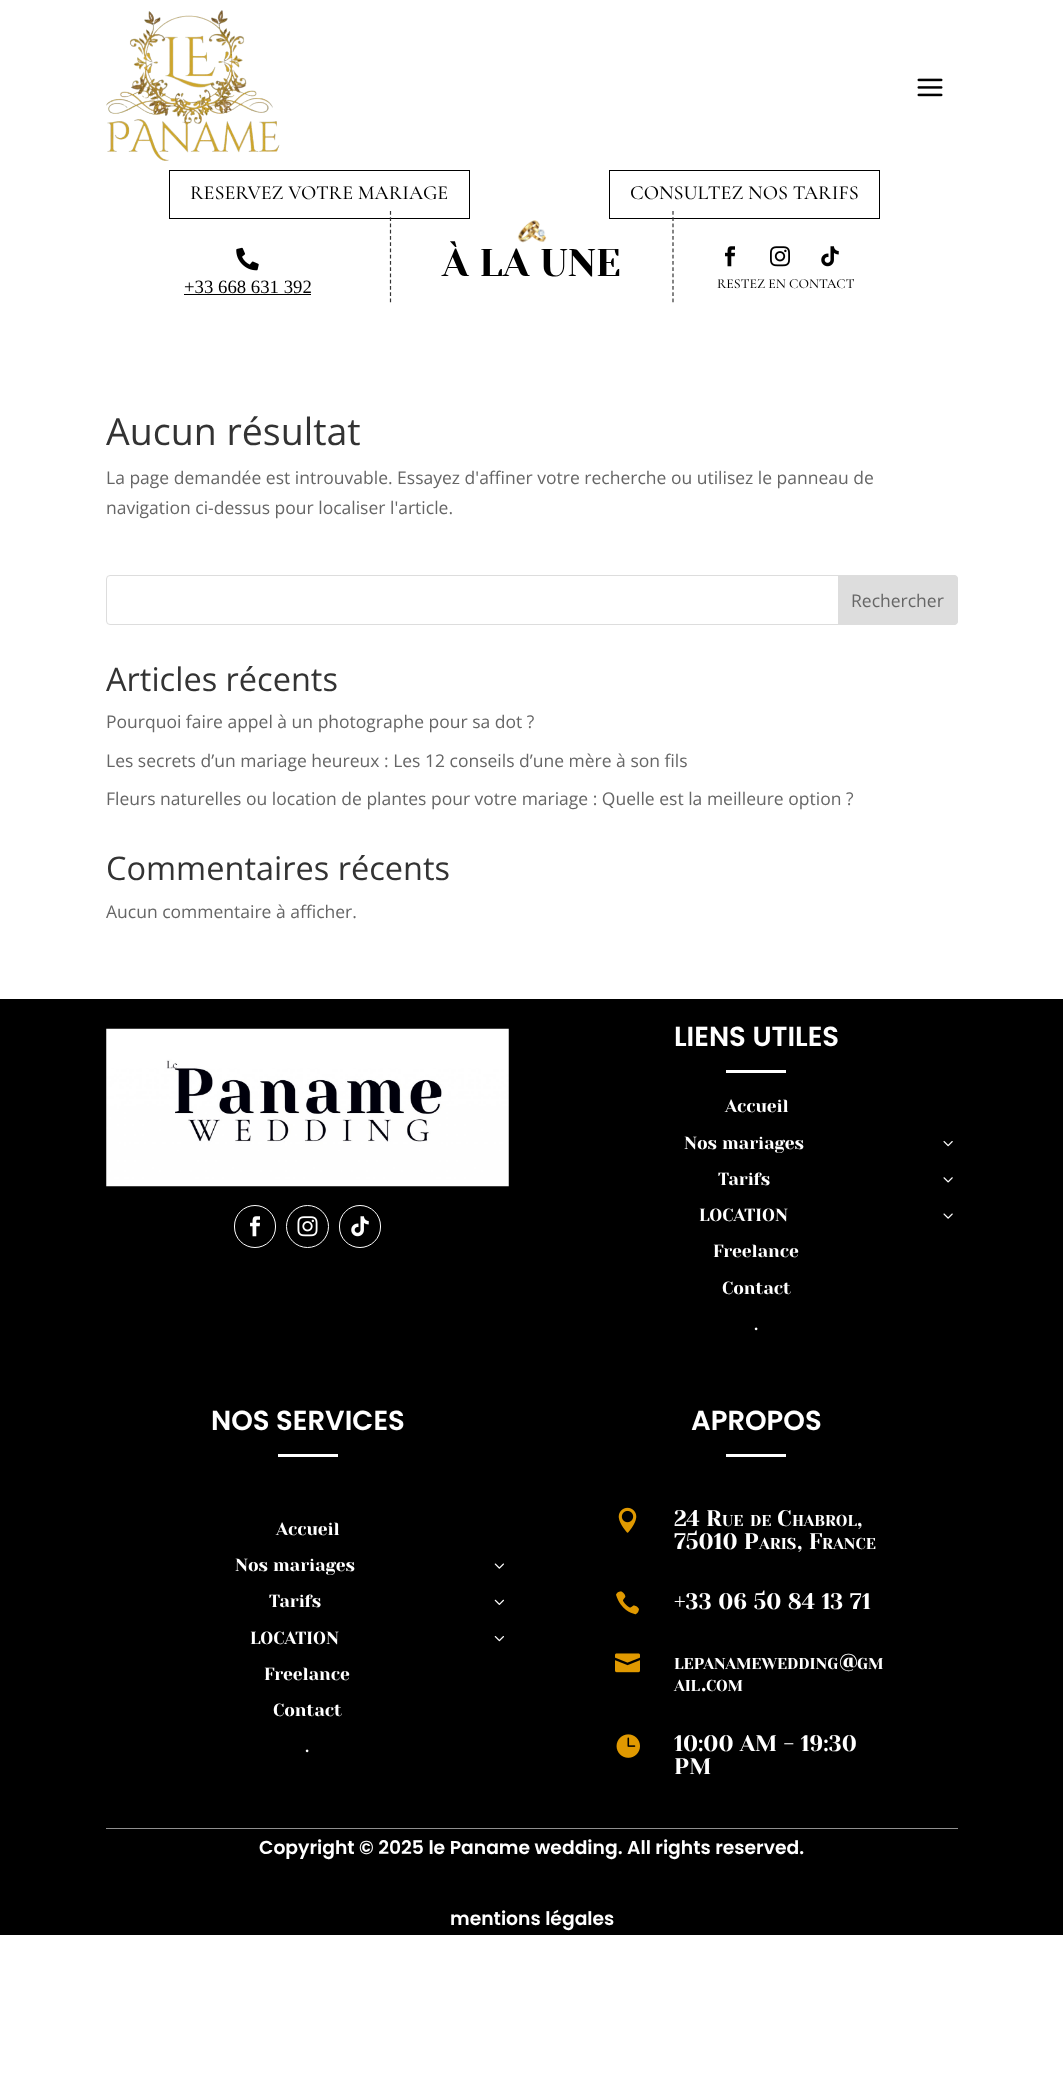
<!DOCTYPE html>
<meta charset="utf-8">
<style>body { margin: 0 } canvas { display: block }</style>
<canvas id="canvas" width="1063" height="2090"></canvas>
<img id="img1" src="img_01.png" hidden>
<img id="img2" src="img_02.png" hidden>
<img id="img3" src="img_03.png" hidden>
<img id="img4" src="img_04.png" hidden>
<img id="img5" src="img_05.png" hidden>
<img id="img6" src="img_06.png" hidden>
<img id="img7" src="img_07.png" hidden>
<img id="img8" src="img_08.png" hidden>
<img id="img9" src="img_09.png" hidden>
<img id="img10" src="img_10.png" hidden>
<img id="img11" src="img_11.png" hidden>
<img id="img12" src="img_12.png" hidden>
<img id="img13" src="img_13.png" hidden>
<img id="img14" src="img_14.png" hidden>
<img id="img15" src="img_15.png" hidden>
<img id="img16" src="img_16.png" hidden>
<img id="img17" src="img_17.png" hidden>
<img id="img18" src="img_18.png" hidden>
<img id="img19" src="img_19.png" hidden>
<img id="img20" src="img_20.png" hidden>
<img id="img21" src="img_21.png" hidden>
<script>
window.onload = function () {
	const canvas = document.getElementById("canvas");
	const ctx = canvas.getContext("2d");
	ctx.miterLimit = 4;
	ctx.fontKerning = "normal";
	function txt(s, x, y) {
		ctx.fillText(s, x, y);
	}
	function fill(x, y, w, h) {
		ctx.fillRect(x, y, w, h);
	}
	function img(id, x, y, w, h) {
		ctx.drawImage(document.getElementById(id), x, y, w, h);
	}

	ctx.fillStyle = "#FFFFFF";
	fill(0, 0, 1063, 2090);
	img("img1", 106, 10, 174, 151);
	img("img2", 917, 78, 26, 19);
	ctx.strokeStyle = "#000000";
	ctx.strokeRect(169.5, 170.5, 300, 48);
	ctx.strokeRect(609.5, 170.5, 270, 48);
	ctx.beginPath();
	ctx.moveTo(673, 211);
	ctx.lineTo(673, 302.5);
	ctx.strokeStyle = "#333333";
	ctx.lineWidth = 1.2;
	ctx.setLineDash([3.75, 2.5]);
	ctx.stroke();
	ctx.beginPath();
	ctx.moveTo(390.5, 211);
	ctx.lineTo(390.5, 302.5);
	ctx.stroke();
	img("img3", 517, 220, 30, 23);
	img("img4", 236, 247, 23, 24);
	ctx.fillStyle = "#000000";
	fill(184, 294, 127, 1);
	img("img5", 725, 246, 10, 21);
	img("img6", 770, 246, 20, 21);
	img("img7", 821, 246, 18, 21);
	ctx.beginPath();
	ctx.roundRect(106.5, 575.5, 851, 49, 3.5);
	ctx.strokeStyle = "#DDDDDD";
	ctx.lineWidth = 1;
	ctx.setLineDash([]);
	ctx.stroke();
	ctx.fillStyle = "#DDDDDD";
	ctx.beginPath();
	ctx.roundRect(838.5, 575.5, 119, 49, [0, 3.5, 3.5, 0]);
	ctx.fill();
	ctx.stroke();
	ctx.fillStyle = "#000000";
	fill(0, 999, 1063, 936);
	img("img8", 106, 1028, 403, 159);
	ctx.beginPath();
	ctx.roundRect(234.5, 1205.5, 41, 42, 20.5);
	ctx.strokeStyle = "#FFFFFF";
	ctx.stroke();
	img("img9", 250, 1216, 10, 21);
	ctx.beginPath();
	ctx.arc(307.5, 1226.5, 21, 0, Math.PI * 2);
	ctx.stroke();
	img("img10", 297, 1216, 21, 21);
	ctx.beginPath();
	ctx.roundRect(339.5, 1205.5, 41, 42, 20.5);
	ctx.stroke();
	img("img11", 351, 1216, 18, 21);
	ctx.fillStyle = "#FFFFFF";
	fill(726, 1070, 60, 3);
	img("img12", 943, 1141, 10, 6);
	img("img13", 943, 1177, 10, 6);
	img("img14", 943, 1213, 10, 6);
	fill(278, 1454, 60, 3);
	img("img15", 494, 1563, 10, 6);
	img("img16", 494, 1599, 10, 6);
	img("img17", 494, 1636, 10, 6);
	fill(726, 1454, 60, 3);
	img("img18", 618, 1507, 19, 26);
	img("img19", 616, 1591, 23, 24);
	img("img20", 615, 1653, 25, 20);
	img("img21", 616, 1734, 24, 24);
	ctx.fillStyle = "#8F8F8F";
	fill(106, 1828, 852, 1);
	ctx.font = "500 20px Cormorant Garamond";
	ctx.fillStyle = "#000000";
	txt("RESERVEZ VOTRE MARIAGE", 190, 199);
	txt("CONSULTEZ NOS TARIFS", 630, 199);
	ctx.font = "38.75px Yeseva One";
	txt("À LA UNE", 442, 276);
	ctx.font = "18.75px Liberation Serif";
	txt("+33 668 631 392", 184, 293);
	ctx.font = "500 13.75px Cormorant Garamond";
	txt("RESTEZ EN CONTACT", 717, 288);
	ctx.font = "37.5px Open Sans";
	ctx.fillStyle = "#333333";
	txt("Aucun résultat", 106, 445);
	ctx.font = "17.5px Open Sans";
	ctx.fillStyle = "#666666";
	txt("La page demandée est introuvable. Essayez d'affiner votre recherche ou utilisez le panneau de", 106, 484);
	txt("navigation ci-dessus pour localiser l'article.", 106, 514);
	txt("Rechercher", 851, 607);
	ctx.font = "32.5px Open Sans";
	ctx.fillStyle = "#333333";
	txt("Articles récents", 106, 691);
	ctx.font = "17.5px Open Sans";
	ctx.fillStyle = "#666666";
	txt("Pourquoi faire appel à un photographe pour sa dot ?", 106, 728);
	txt("Les secrets d’un mariage heureux : Les 12 conseils d’une mère à son fils", 106, 767);
	txt("Fleurs naturelles ou location de plantes pour votre mariage : Quelle est la meilleure option ?", 106, 805);
	ctx.font = "32.5px Open Sans";
	ctx.fillStyle = "#333333";
	txt("Commentaires récents", 106, 880);
	ctx.font = "17.5px Open Sans";
	ctx.fillStyle = "#666666";
	txt("Aucun commentaire à afficher.", 106, 918);
	ctx.font = "600 27.5px Poppins";
	ctx.fillStyle = "#FFFFFF";
	txt("LIENS UTILES", 674, 1046);
	ctx.font = "17.5px Yeseva One";
	txt("Accueil", 725, 1112);
	txt("Nos mariages", 684, 1149);
	txt("Tarifs", 718, 1185);
	txt("LOCATION", 699, 1221);
	txt("Freelance", 713, 1257);
	txt("Contact", 722, 1294);
	txt(".", 754, 1330);
	ctx.font = "600 27.5px Poppins";
	txt("NOS SERVICES", 211, 1430);
	ctx.font = "17.5px Yeseva One";
	txt("Accueil", 276, 1535);
	txt("Nos mariages", 235, 1571);
	txt("Tarifs", 269, 1607);
	txt("LOCATION", 250, 1644);
	txt("Freelance", 264, 1680);
	txt("Contact", 273, 1716);
	txt(".", 305, 1752);
	ctx.font = "600 27.5px Poppins";
	txt("APROPOS", 691, 1430);
	ctx.font = "22.5px Yeseva One";
	txt("24 R", 674, 1526);
	ctx.font = "15.75px Yeseva One";
	txt("UE", 722, 1526);
	txt("DE", 750, 1526);
	ctx.font = "22.5px Yeseva One";
	txt("C", 777, 1526);
	ctx.font = "15.75px Yeseva One";
	txt("HABROL", 792, 1526);
	ctx.font = "22.5px Yeseva One";
	txt(",", 857, 1526);
	txt("75010 P", 674, 1549);
	ctx.font = "15.75px Yeseva One";
	txt("ARIS", 759, 1549);
	ctx.font = "22.5px Yeseva One";
	txt(", F", 797, 1549);
	ctx.font = "15.75px Yeseva One";
	txt("RANCE", 822, 1549);
	ctx.font = "22.5px Yeseva One";
	txt("+33 06 50 84 13 71", 674, 1609);
	ctx.font = "15.75px Yeseva One";
	txt("LEPANAMEWEDDING", 674, 1669);
	ctx.font = "22.5px Yeseva One";
	txt("@", 839, 1669);
	ctx.font = "15.75px Yeseva One";
	txt("GM", 857, 1669);
	txt("AIL", 674, 1691);
	ctx.font = "22.5px Yeseva One";
	txt(".", 701, 1691);
	ctx.font = "15.75px Yeseva One";
	txt("COM", 706, 1691);
	ctx.font = "22.5px Yeseva One";
	txt("10:00 AM - 19:30", 674, 1751);
	txt("PM", 674, 1774);
	ctx.font = "600 18.75px Poppins";
	txt("Copyright © 2025 le Paname wedding. All rights reserved.", 259, 1854);
	txt("mentions légales", 450, 1925);
};
</script>
